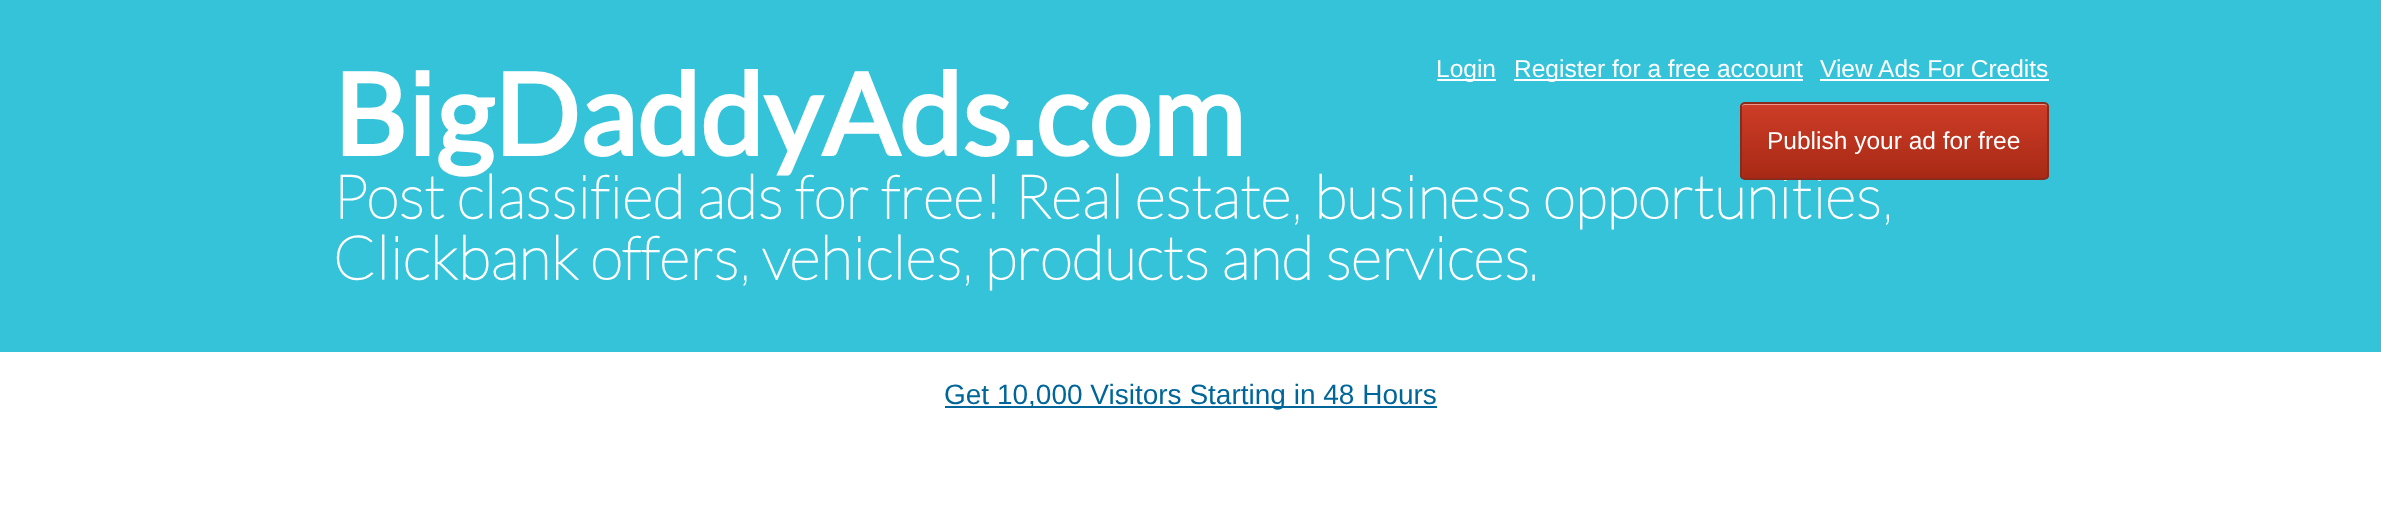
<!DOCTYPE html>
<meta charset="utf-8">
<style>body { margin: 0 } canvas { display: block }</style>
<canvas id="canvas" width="2381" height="514"></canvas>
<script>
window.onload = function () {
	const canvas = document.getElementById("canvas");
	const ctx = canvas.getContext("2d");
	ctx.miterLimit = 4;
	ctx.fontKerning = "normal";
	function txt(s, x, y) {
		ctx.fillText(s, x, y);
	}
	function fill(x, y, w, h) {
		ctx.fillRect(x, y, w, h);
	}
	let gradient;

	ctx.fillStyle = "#FFFFFF";
	fill(0, 0, 2381, 514);
	ctx.fillStyle = "#35C3D9";
	fill(0, 0, 2381, 352);
	ctx.fillStyle = "#FFFFFF";
	fill(1437, 79, 59, 2);
	fill(1514, 79, 289, 2);
	fill(1820, 79, 229, 2);
	ctx.fillStyle = "#006699";
	fill(945, 406, 492, 2);
	ctx.font = "24.5px Liberation Sans";
	ctx.fillStyle = "#FFFFFF";
	txt("Login", 1436, 77);
	txt("Register for a free account", 1514, 77);
	txt("View Ads For Credits", 1820, 77);
	ctx.font = "bold 113.5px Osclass";
	txt("BigDaddyAds.com", 333, 156);
	ctx.font = "200 60.5px Osclass";
	txt("Post classified ads for free! Real estate, business opportunities,", 333, 218);
	ctx.save();
	ctx.beginPath();
	ctx.roundRect(1740, 102, 309, 78, 5);
	ctx.clip();
	gradient = ctx.createLinearGradient(1894, 103, 1894, 179);
	gradient.addColorStop(0, "#CE3D27");
	gradient.addColorStop(1, "#A72915");
	ctx.fillStyle = gradient;
	fill(1740, 103, 309, 76);
	ctx.restore();
	ctx.fillStyle = "#E9988B";
	ctx.beginPath();
	ctx.moveTo(1745, 105);
	ctx.lineTo(2044, 105);
	ctx.bezierCurveTo(2046, 105, 2048, 107, 2048, 108);
	ctx.bezierCurveTo(2048, 105, 2047, 103, 2044, 103);
	ctx.lineTo(1745, 103);
	ctx.lineTo(1742, 104);
	ctx.bezierCurveTo(1741, 105, 1741, 107, 1741, 108);
	ctx.bezierCurveTo(1741, 107, 1743, 105, 1745, 105);
	ctx.closePath();
	ctx.fill();
	ctx.beginPath();
	ctx.roundRect(1741, 103, 307, 76, 4);
	ctx.strokeStyle = "#8D2A1B";
	ctx.lineWidth = 2;
	ctx.stroke();
	ctx.font = "24.5px Liberation Sans";
	ctx.fillStyle = "#FFFFFF";
	txt("Publish your ad for free", 1767, 149);
	ctx.font = "200 60.5px Osclass";
	txt("Clickbank offers, vehicles, products and services.", 333, 279);
	ctx.font = "28px Liberation Sans";
	ctx.fillStyle = "#006699";
	txt("Get 10,000 Visitors Starting in 48 Hours", 944, 404);
};
</script>
